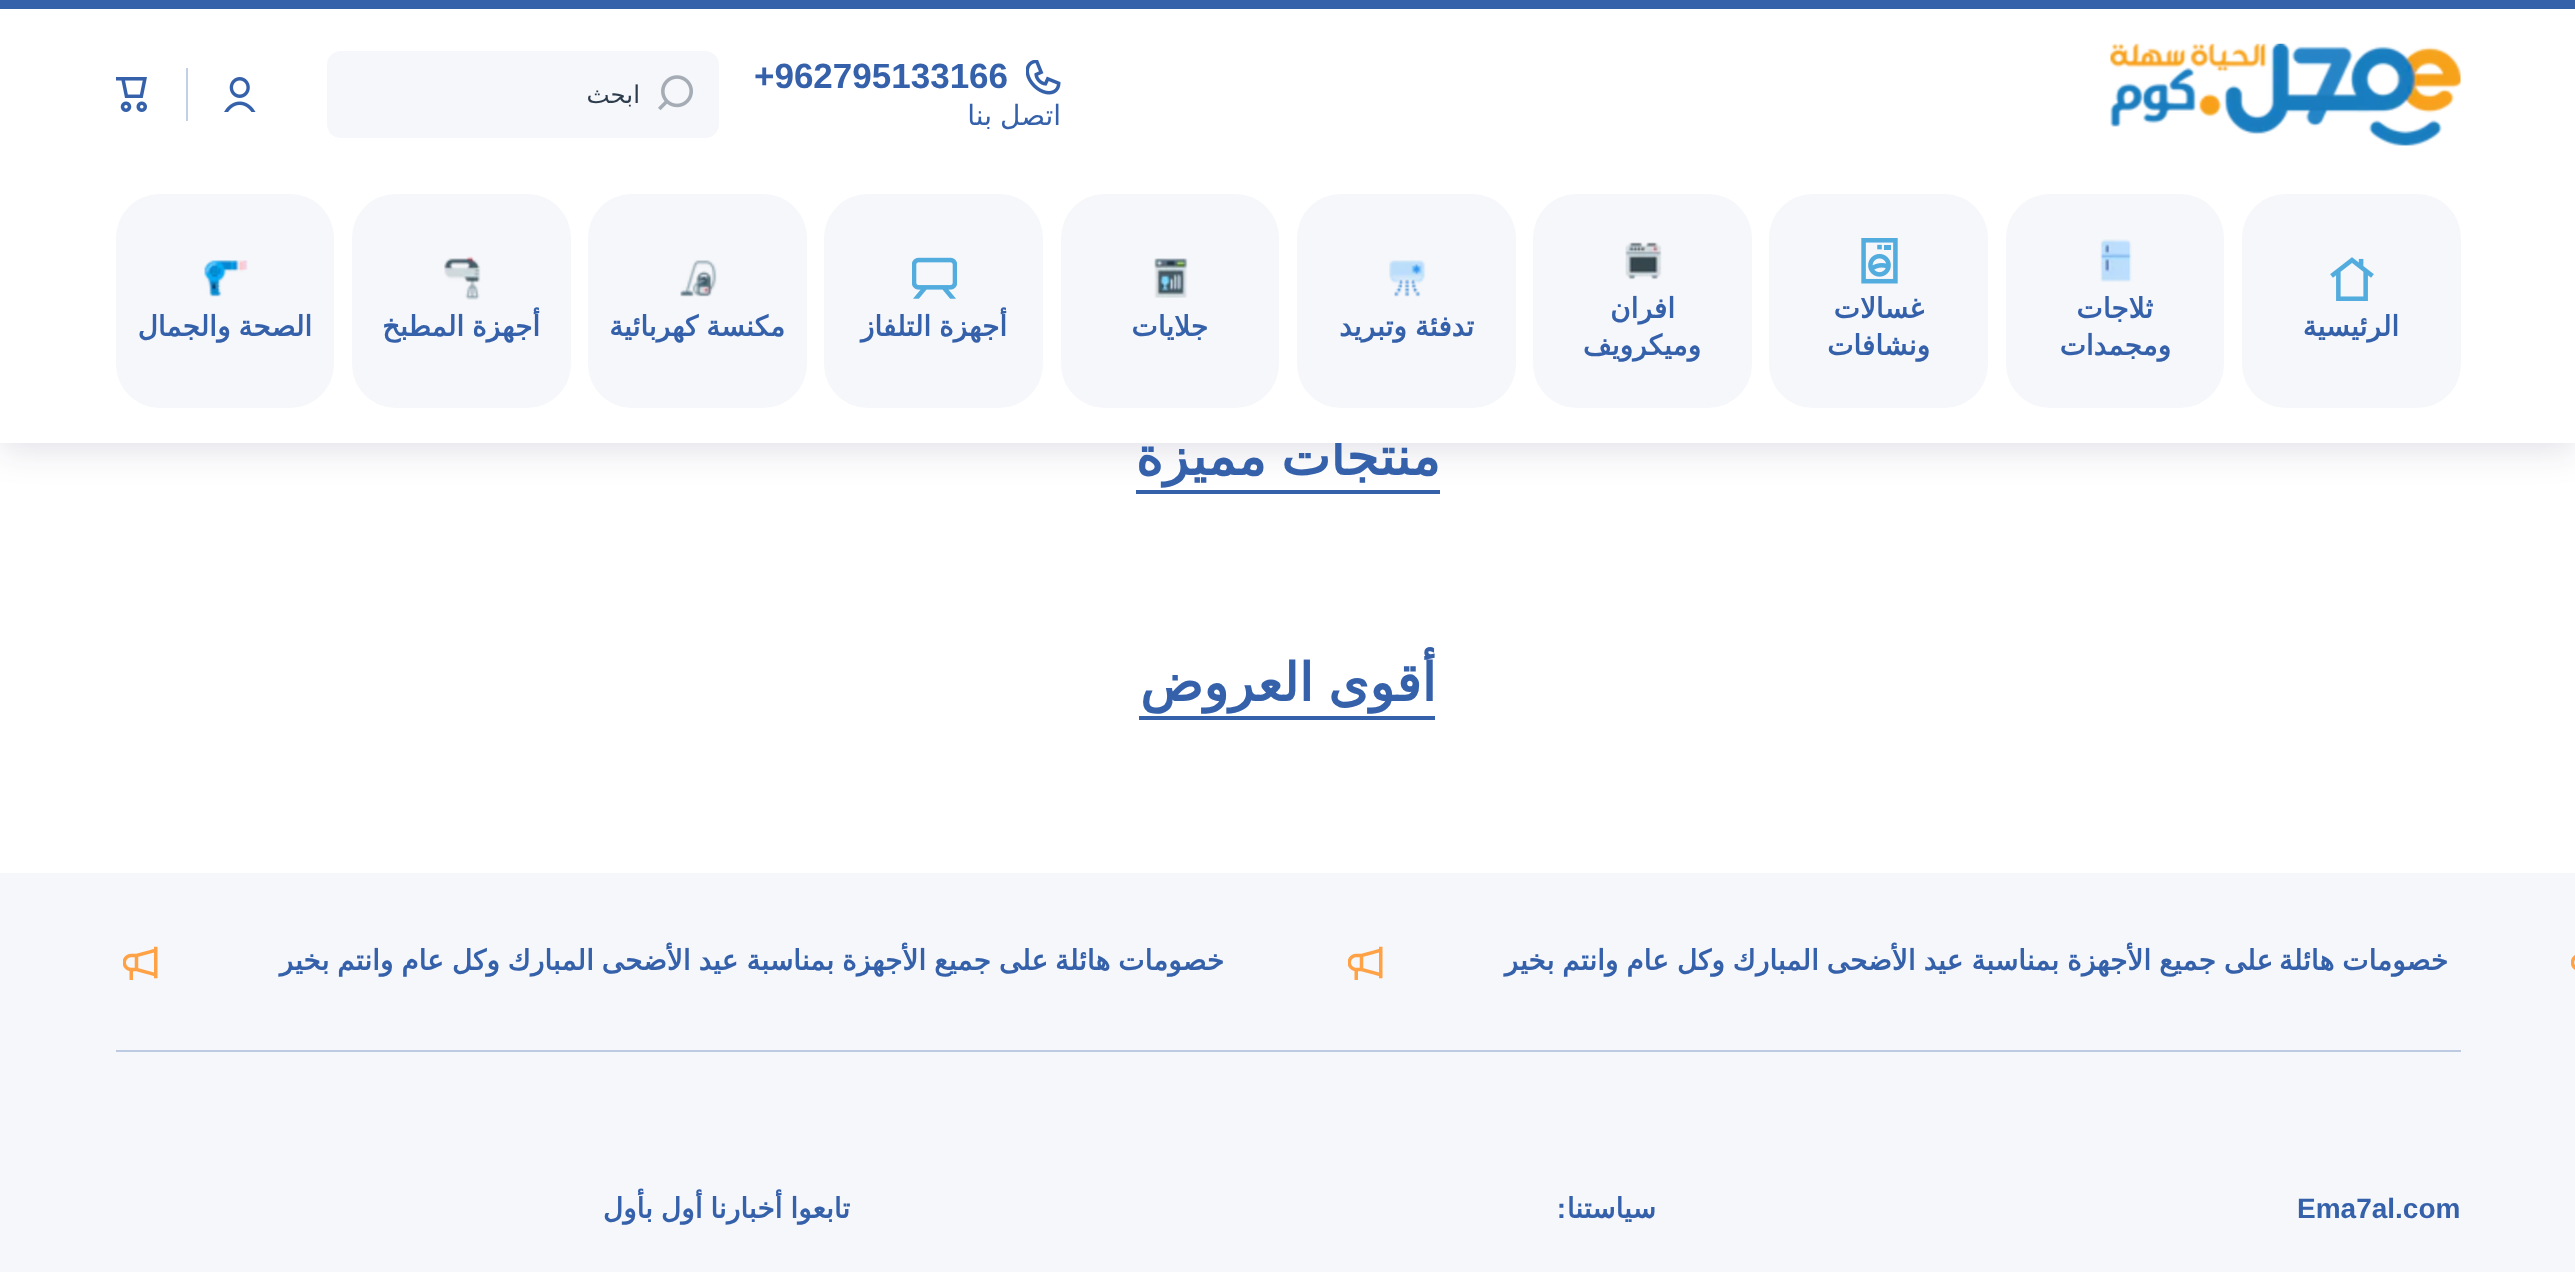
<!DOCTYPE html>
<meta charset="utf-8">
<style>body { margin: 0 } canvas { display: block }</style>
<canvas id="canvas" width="2575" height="1272"></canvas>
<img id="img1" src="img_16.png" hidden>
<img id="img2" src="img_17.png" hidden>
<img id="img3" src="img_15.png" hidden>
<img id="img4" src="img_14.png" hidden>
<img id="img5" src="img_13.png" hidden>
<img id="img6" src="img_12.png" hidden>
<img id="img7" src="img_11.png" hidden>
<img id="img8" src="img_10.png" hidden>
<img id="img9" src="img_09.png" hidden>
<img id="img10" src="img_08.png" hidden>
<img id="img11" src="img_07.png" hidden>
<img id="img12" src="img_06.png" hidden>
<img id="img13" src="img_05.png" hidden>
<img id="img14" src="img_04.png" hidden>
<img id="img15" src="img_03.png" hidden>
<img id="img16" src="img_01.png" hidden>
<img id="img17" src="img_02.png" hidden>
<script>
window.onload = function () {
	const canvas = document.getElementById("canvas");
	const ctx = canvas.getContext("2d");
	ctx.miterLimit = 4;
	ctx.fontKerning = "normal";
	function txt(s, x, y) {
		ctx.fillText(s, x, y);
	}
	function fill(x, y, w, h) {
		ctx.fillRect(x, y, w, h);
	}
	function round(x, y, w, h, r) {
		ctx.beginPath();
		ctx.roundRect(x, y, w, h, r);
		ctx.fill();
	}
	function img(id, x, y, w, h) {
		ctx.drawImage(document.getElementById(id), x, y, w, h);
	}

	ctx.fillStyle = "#FFFFFF";
	fill(0, 0, 2575, 1272);
	ctx.fillStyle = "#3561AB";
	fill(1136, 490, 304, 4);
	ctx.fillStyle = "rgba(22, 19, 69, 0.13)";
	ctx.filter = "blur(17.5px)";
	ctx.beginPath();
	ctx.rect(0, 7, 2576, 443);
	ctx.fill();
	ctx.filter = "none";
	ctx.fillStyle = "#3561AB";
	fill(0, 0, 2575, 9);
	fill(1139, 716, 296, 4);
	ctx.fillStyle = "#F6F7FA";
	fill(0, 873, 2575, 399);
	img("img1", 2571, 955, 4, 15);
	img("img2", 1348, 946, 35, 34);
	img("img2", 123, 946, 35, 34);
	ctx.fillStyle = "#BCCAE2";
	fill(116, 1050, 2345, 2);
	ctx.wordSpacing = "-2px";
	ctx.direction = "rtl";
	ctx.font = "bold 52.5px DejaVu Sans";
	ctx.fillStyle = "#3561AB";
	txt("منتجات مميزة", 1440, 475);
	ctx.fillStyle = "#FFFFFF";
	fill(0, 9, 2575, 434);
	ctx.fillStyle = "#C2D0E6";
	fill(186, 68, 2, 53);
	ctx.fillStyle = "#F6F7FA";
	round(327, 51, 392, 87, 14);
	ctx.wordSpacing = "0px";
	ctx.font = "24.5px DejaVu Sans";
	ctx.fillStyle = "#2C3C4D";
	txt("ابحث", 640, 103);
	ctx.fillStyle = "#F6F7FA";
	round(116, 194, 218, 214, 44);
	ctx.wordSpacing = "-1px";
	ctx.font = "bold 28px DejaVu Sans";
	ctx.fillStyle = "#3561AB";
	txt("الصحة والجمال", 312, 336);
	img("img3", 204, 260, 44, 37);
	ctx.fillStyle = "#F6F7FA";
	round(352, 194, 219, 214, 44);
	ctx.fillStyle = "#3561AB";
	txt("أجهزة المطبخ", 540, 336);
	img("img4", 444, 256, 37, 44);
	ctx.fillStyle = "#F6F7FA";
	round(588, 194, 219, 214, 44);
	ctx.fillStyle = "#3561AB";
	txt("مكنسة كهربائية", 785, 336);
	img("img5", 680, 260, 37, 37);
	ctx.fillStyle = "#F6F7FA";
	round(824, 194, 219, 214, 44);
	img("img6", 912, 257, 45, 42);
	ctx.fillStyle = "#3561AB";
	txt("أجهزة التلفاز", 1007, 336);
	ctx.fillStyle = "#F6F7FA";
	round(1061, 194, 218, 214, 44);
	ctx.wordSpacing = "0px";
	ctx.fillStyle = "#3561AB";
	txt("جلايات", 1208, 336);
	img("img7", 1154, 258, 34, 40);
	ctx.fillStyle = "#F6F7FA";
	round(1297, 194, 219, 214, 44);
	ctx.wordSpacing = "-1px";
	ctx.fillStyle = "#3561AB";
	txt("تدفئة وتبريد", 1474, 336);
	img("img8", 1389, 260, 37, 37);
	ctx.fillStyle = "#F6F7FA";
	round(1533, 194, 219, 214, 44);
	ctx.wordSpacing = "0px";
	ctx.fillStyle = "#3561AB";
	txt("وميكرويف", 1701, 355);
	txt("افران", 1675, 318);
	img("img9", 1625, 242, 37, 38);
	ctx.fillStyle = "#F6F7FA";
	round(1769, 194, 219, 214, 44);
	img("img10", 1861, 238, 37, 46);
	ctx.fillStyle = "#3561AB";
	txt("ونشافات", 1930, 355);
	txt("غسالات", 1924, 318);
	ctx.fillStyle = "#F6F7FA";
	round(2006, 194, 218, 214, 44);
	ctx.fillStyle = "#3561AB";
	txt("ومجمدات", 2171, 355);
	txt("ثلاجات", 2153, 318);
	img("img11", 2100, 239, 32, 43);
	ctx.fillStyle = "#F6F7FA";
	round(2242, 194, 219, 214, 44);
	img("img12", 2330, 257, 44, 44);
	ctx.fillStyle = "#3561AB";
	txt("الرئيسية", 2399, 336);
	img("img13", 116, 77, 31, 35);
	img("img14", 224, 77, 32, 35);
	img("img15", 658, 75, 35, 35);
	img("img16", 2110, 43, 351, 103);
	img("img17", 1026, 60, 35, 35);
	ctx.wordSpacing = "-1px";
	ctx.font = "28px DejaVu Sans";
	txt("اتصل بنا", 1061, 125);
	ctx.wordSpacing = "0px";
	ctx.direction = "ltr";
	ctx.font = "bold 35px Liberation Sans";
	txt("+962795133166", 754, 88);
	ctx.wordSpacing = "-2px";
	ctx.direction = "rtl";
	ctx.font = "bold 52.5px DejaVu Sans";
	txt("أقوى العروض", 1436, 701);
	ctx.wordSpacing = "-1px";
	ctx.font = "bold 28px DejaVu Sans";
	txt("خصومات هائلة", 2448, 970);
	txt("على جميع الأجهزة بمناسبة عيد الأضحى المبارك وكل عام وانتم بخير", 2273, 970);
	txt("خصومات هائلة", 1224, 970);
	txt("على جميع الأجهزة بمناسبة عيد الأضحى المبارك وكل عام وانتم بخير", 1048, 970);
	ctx.wordSpacing = "0px";
	ctx.direction = "ltr";
	ctx.font = "bold 28px Liberation Sans";
	txt("Ema7al.com", 2297, 1218);
	ctx.direction = "rtl";
	ctx.font = "bold 28px DejaVu Sans";
	txt("سياستنا", 1656, 1218);
	ctx.font = "bold 28px Liberation Sans";
	txt(":", 1566, 1218);
	ctx.wordSpacing = "-1px";
	ctx.font = "bold 28px DejaVu Sans";
	txt("تابعوا أخبارنا أول بأول", 850, 1218);
};
</script>
